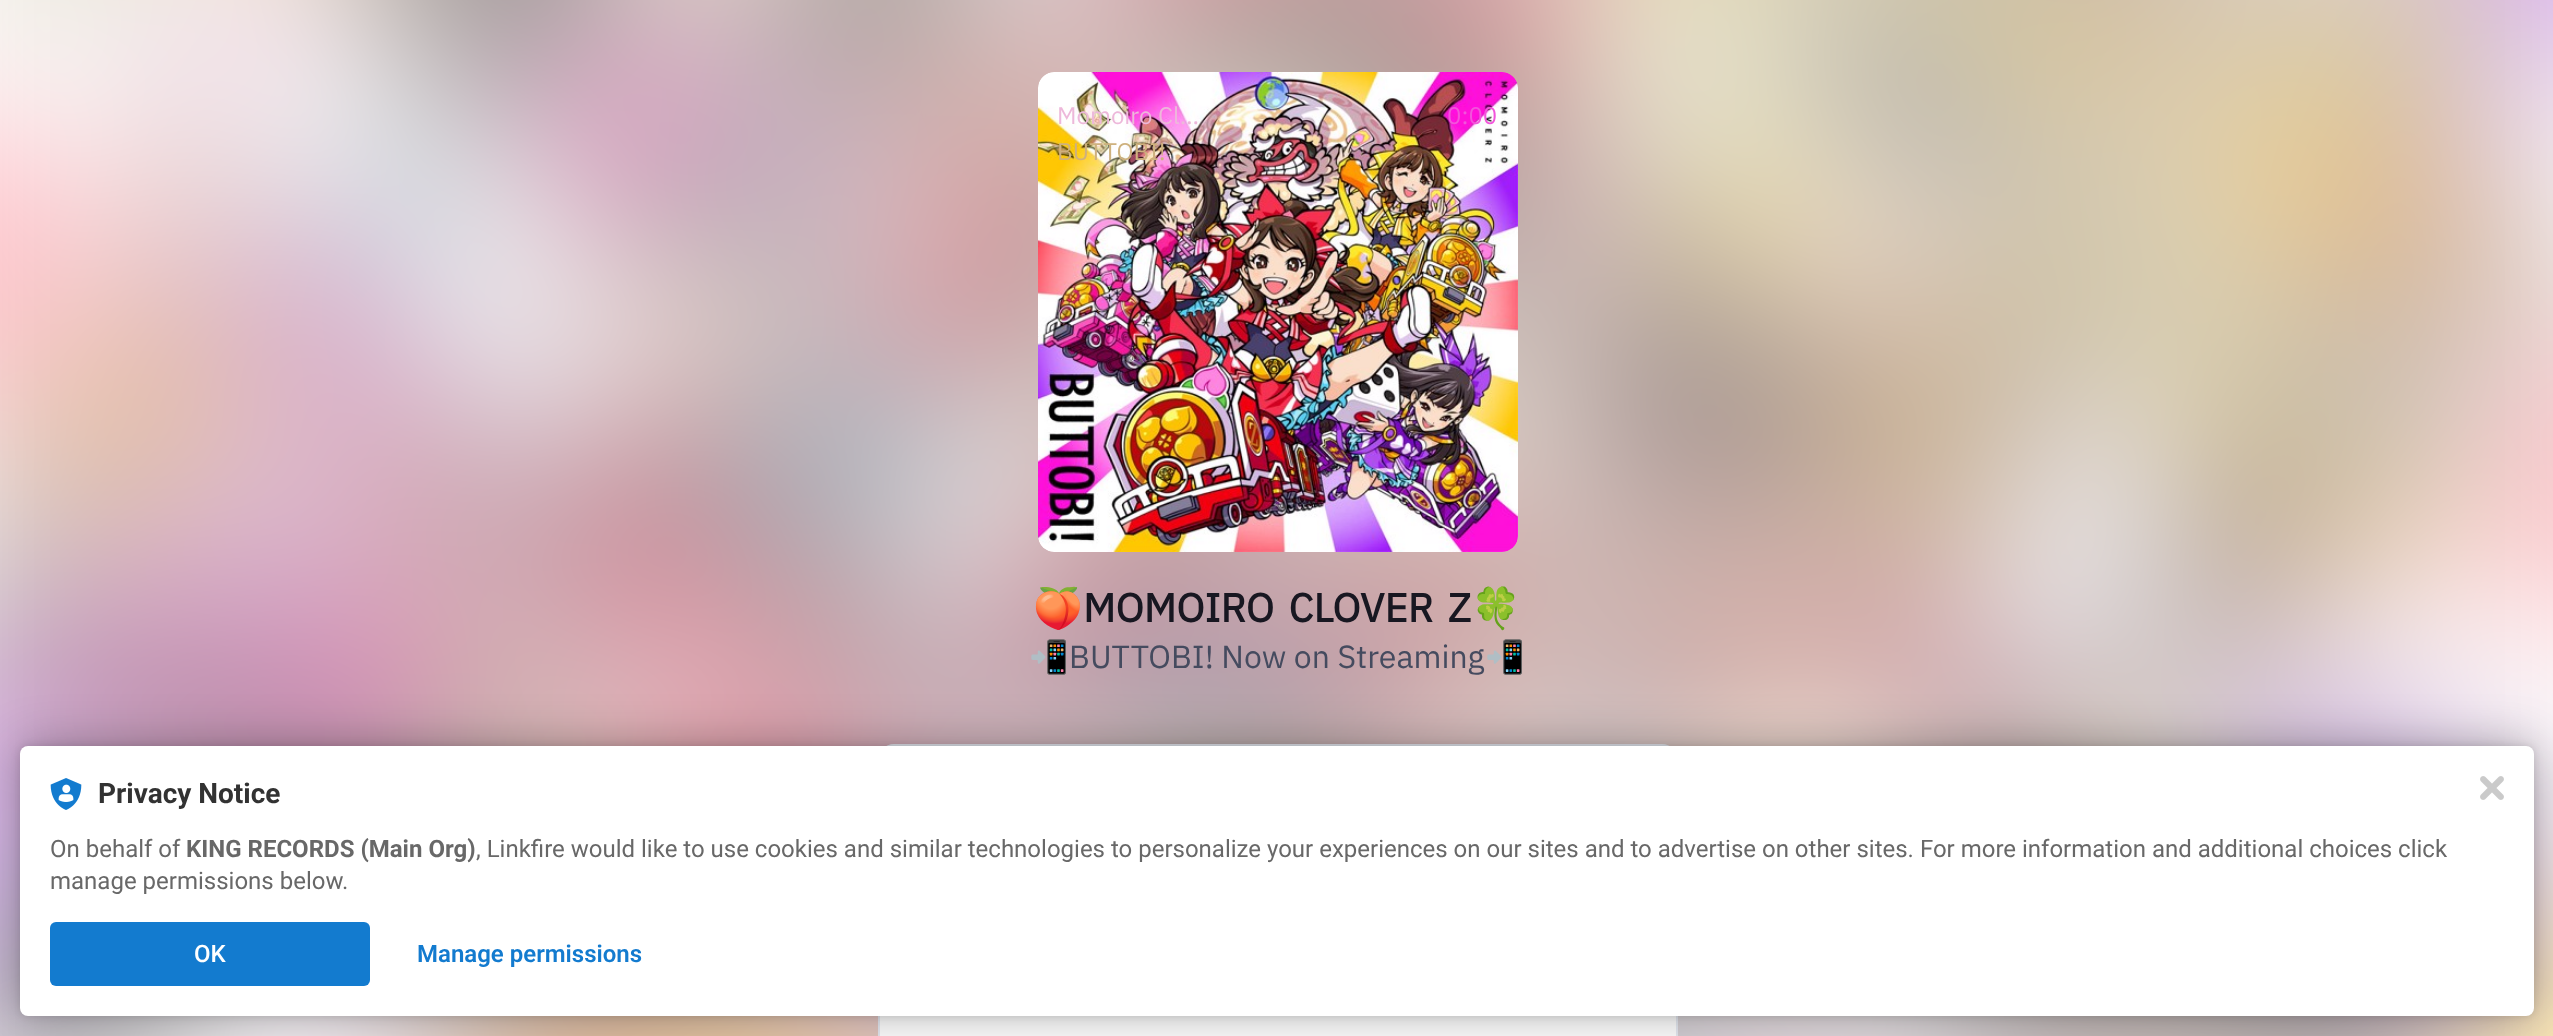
<!DOCTYPE html>
<meta charset="utf-8">
<style>body { margin: 0 } canvas { display: block }</style>
<canvas id="canvas" width="2553" height="1036"></canvas>
<img id="img1" src="img_01.png" hidden>
<img id="img2" src="img_02.png" hidden>
<img id="img3" src="img_03.png" hidden>
<img id="img4" src="img_04.png" hidden>
<script>
window.onload = function () {
	const canvas = document.getElementById("canvas");
	const ctx = canvas.getContext("2d");
	ctx.miterLimit = 4;
	ctx.fontKerning = "normal";
	function txt(s, x, y) {
		ctx.fillText(s, x, y);
	}
	function fill(x, y, w, h) {
		ctx.fillRect(x, y, w, h);
	}
	function round(x, y, w, h, r) {
		ctx.beginPath();
		ctx.roundRect(x, y, w, h, r);
		ctx.fill();
	}
	function img(id, x, y, w, h) {
		ctx.drawImage(document.getElementById(id), x, y, w, h);
	}

	ctx.fillStyle = "#FFFFFF";
	fill(0, 0, 2553, 1036);
	img("img1", 0, 0, 2553, 1036);
	img("img2", 1038, 72, 480, 480);
	ctx.beginPath();
	ctx.roundRect(879, 745, 798, 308, 15);
	ctx.strokeStyle = "#E6EAF2";
	ctx.lineWidth = 2;
	ctx.stroke();
	fill(880, 1016, 796, 20);
	ctx.fillStyle = "rgba(0, 0, 0, 0.12)";
	ctx.filter = "blur(4px)";
	ctx.beginPath();
	ctx.roundRect(20, 746, 2514, 270, 8);
	ctx.fill();
	ctx.filter = "none";
	ctx.fillStyle = "rgba(0, 0, 0, 0.3)";
	ctx.filter = "blur(24px)";
	ctx.beginPath();
	ctx.roundRect(20, 746, 2514, 270, 8);
	ctx.fill();
	ctx.filter = "none";
	ctx.fillStyle = "#FFFFFF";
	round(20, 746, 2514, 270, 8);
	img("img3", 50, 778, 32, 32);
	ctx.fillStyle = "#137BCF";
	round(50, 922, 320, 64, 6);
	img("img4", 2480, 776, 24, 24);
	ctx.font = "24px IBM Plex Sans";
	ctx.fillStyle = "#EDB8DA";
	txt("Momoiro Cl…", 1057, 124);
	ctx.fillStyle = "#CEB17E";
	txt("BUTTOBI!", 1057, 160);
	ctx.fillStyle = "#F254DB";
	txt("0:00", 1447, 124);
	ctx.font = "bold 40px Noto Color Emoji";
	ctx.fillStyle = "#181721";
	txt("🍑", 1033, 622);
	ctx.wordSpacing = "5px";
	ctx.font = "bold 40px IBM Plex Sans";
	txt("MOMOIRO CLOVER Z", 1083, 622);
	ctx.wordSpacing = "0px";
	ctx.font = "bold 40px Noto Color Emoji";
	txt("🍀", 1471, 622);
	ctx.font = "32px Noto Color Emoji";
	ctx.fillStyle = "#454B5F";
	txt("📲", 1029, 668);
	ctx.font = "32px IBM Plex Sans";
	txt("BUTTOBI! Now on Streaming", 1069, 668);
	ctx.font = "32px Noto Color Emoji";
	txt("📲", 1485, 668);
	ctx.font = "bold 28px Roboto";
	ctx.fillStyle = "#323232";
	txt("Privacy Notice", 98, 803);
	ctx.font = "24px Roboto";
	ctx.fillStyle = "#686868";
	txt("On behalf of", 50, 857);
	ctx.font = "bold 24px Roboto";
	txt("KING RECORDS (Main Org)", 186, 857);
	ctx.font = "24px Roboto";
	txt(", Linkfire would like to use cookies and similar technologies to personalize your experiences on our sites and to advertise on other sites. For more information and additional choices click", 476, 857);
	txt("manage permissions below.", 50, 889);
	ctx.font = "500 24px Roboto";
	ctx.fillStyle = "#FFFFFF";
	txt("OK", 194, 962);
	ctx.font = "600 24px Roboto";
	ctx.fillStyle = "#137BCF";
	txt("Manage permissions", 417, 962);
};
</script>
